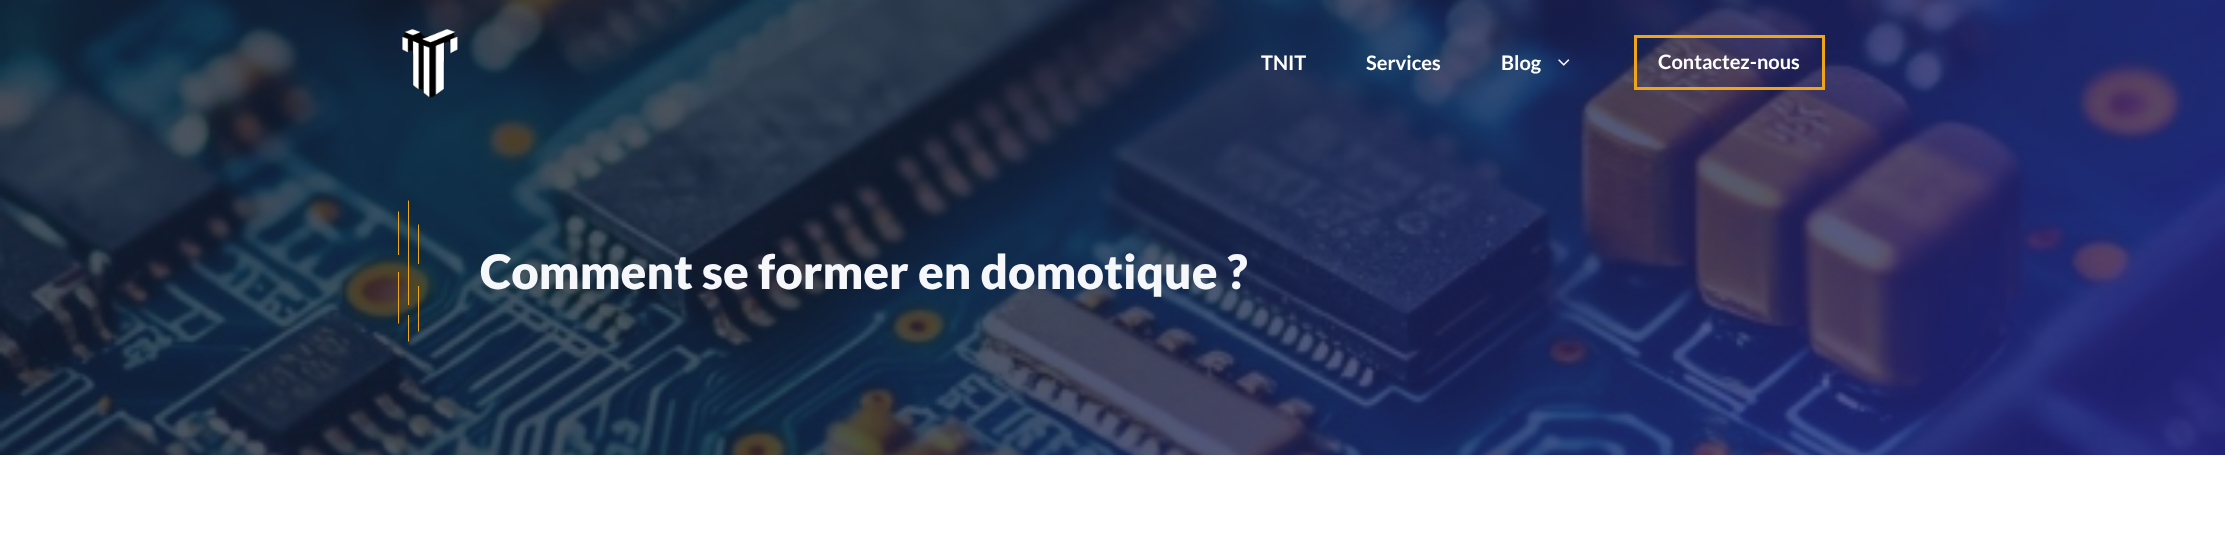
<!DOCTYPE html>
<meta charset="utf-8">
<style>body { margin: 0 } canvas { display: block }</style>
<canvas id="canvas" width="2225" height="536"></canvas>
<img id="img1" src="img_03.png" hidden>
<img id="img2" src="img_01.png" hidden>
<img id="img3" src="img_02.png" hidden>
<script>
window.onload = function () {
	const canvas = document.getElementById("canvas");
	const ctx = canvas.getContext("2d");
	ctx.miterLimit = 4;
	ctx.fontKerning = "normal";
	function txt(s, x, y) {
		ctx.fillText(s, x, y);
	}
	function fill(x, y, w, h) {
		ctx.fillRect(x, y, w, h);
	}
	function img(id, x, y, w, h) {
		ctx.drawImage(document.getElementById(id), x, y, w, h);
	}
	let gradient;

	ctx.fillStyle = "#FFFFFF";
	fill(0, 0, 2225, 536);
	gradient = ctx.createLinearGradient(180, -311, 2045, 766);
	gradient.addColorStop(0.4, "#141F33");
	gradient.addColorStop(1, "#2B2A92");
	ctx.fillStyle = gradient;
	fill(0, 0, 2225, 455);
	img("img1", 0, 0, 2225, 455);
	img("img2", 402, 29, 56, 69);
	img("img3", 1558, 59, 12, 7);
	ctx.strokeStyle = "#F0A518";
	ctx.lineWidth = 3;
	ctx.strokeRect(1635.5, 36.5, 188, 52);
	ctx.fillStyle = "#F0A518";
	ctx.beginPath();
	ctx.moveTo(409, 305);
	ctx.lineTo(409, 200);
	ctx.lineTo(408, 201);
	ctx.lineTo(408, 305);
	ctx.closePath();
	ctx.moveTo(408, 315);
	ctx.lineTo(408, 341);
	ctx.lineTo(409, 342);
	ctx.lineTo(409, 315);
	ctx.closePath();
	ctx.moveTo(418, 286);
	ctx.lineTo(418, 332);
	ctx.lineTo(419, 331);
	ctx.lineTo(419, 286);
	ctx.closePath();
	ctx.moveTo(418, 264);
	ctx.lineTo(419, 264);
	ctx.lineTo(419, 225);
	ctx.lineTo(418, 224);
	ctx.closePath();
	ctx.moveTo(399, 255);
	ctx.lineTo(399, 211);
	ctx.lineTo(398, 212);
	ctx.lineTo(398, 255);
	ctx.closePath();
	ctx.moveTo(399, 272);
	ctx.lineTo(398, 272);
	ctx.lineTo(398, 323);
	ctx.lineTo(399, 324);
	ctx.closePath();
	ctx.fill();
	ctx.font = "bold 20px Lato";
	ctx.fillStyle = "#FFFFFF";
	txt("TNIT", 1261, 70);
	txt("Services", 1366, 70);
	txt("Blog", 1501, 70);
	txt("Contactez-nous", 1658, 69);
	ctx.font = "900 47.5px Lato";
	ctx.fillStyle = "#F5F7FA";
	txt("Comment se former en domotique ?", 480, 289);
};
</script>
